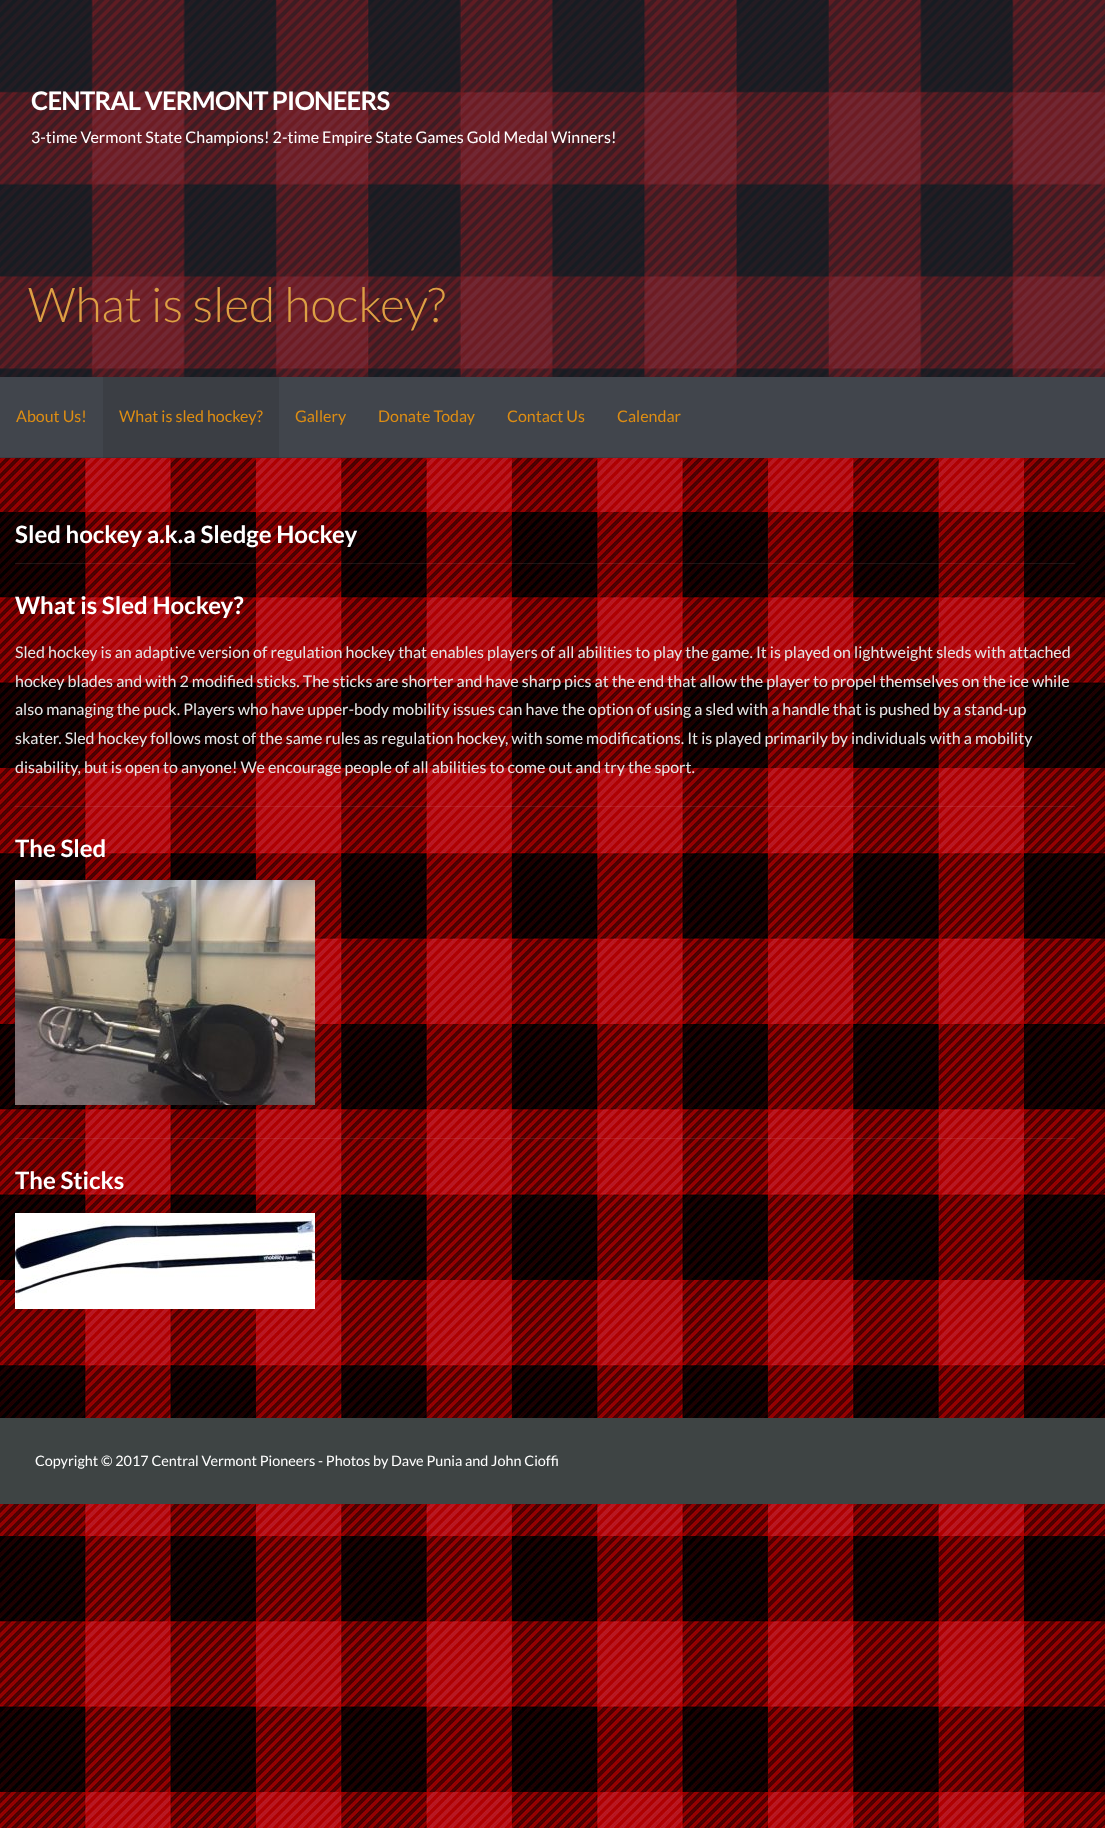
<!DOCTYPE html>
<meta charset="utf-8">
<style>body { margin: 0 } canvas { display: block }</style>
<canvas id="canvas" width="1105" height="1828"></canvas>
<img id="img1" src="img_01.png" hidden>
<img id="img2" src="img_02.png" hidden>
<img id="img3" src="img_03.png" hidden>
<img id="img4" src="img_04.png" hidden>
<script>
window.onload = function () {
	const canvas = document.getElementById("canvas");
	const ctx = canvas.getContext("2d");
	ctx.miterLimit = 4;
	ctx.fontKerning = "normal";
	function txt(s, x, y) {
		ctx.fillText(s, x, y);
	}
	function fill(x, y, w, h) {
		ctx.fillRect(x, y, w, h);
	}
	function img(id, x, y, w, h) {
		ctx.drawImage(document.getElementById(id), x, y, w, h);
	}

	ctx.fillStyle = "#FFFFFF";
	fill(0, 0, 1105, 1828);
	img("img1", 0, 458, 1105, 1370);
	img("img2", 0, 0, 1105, 377);
	ctx.fillStyle = "#41454C";
	fill(0, 377, 1105, 81);
	ctx.fillStyle = "#3B3E44";
	fill(0, 457, 103, 1);
	fill(103, 377, 176, 80);
	ctx.fillStyle = "#35383D";
	fill(103, 457, 176, 1);
	ctx.fillStyle = "#3B3E44";
	fill(279, 457, 418, 1);
	ctx.fillStyle = "rgba(229, 229, 229, 0.1)";
	fill(15, 563, 1060, 1);
	fill(15, 806, 1060, 1);
	img("img3", 15, 880, 300, 225);
	fill(15, 1138, 1060, 1);
	img("img4", 15, 1213, 300, 96);
	ctx.fillStyle = "#3E4444";
	fill(0, 1418, 1105, 86);
	ctx.letterSpacing = "-0.75px";
	ctx.font = "bold 25.6px Lato";
	ctx.fillStyle = "#FFFFFF";
	txt("CENTRAL VERMONT PIONEERS", 31, 110);
	ctx.letterSpacing = "0px";
	ctx.font = "16px Lato";
	txt("3-time Vermont State Champions! 2-time Empire State Games Gold Medal Winners!", 31, 143);
	ctx.font = "300 48px Lato";
	ctx.fillStyle = "#DDA044";
	txt("What is sled hockey?", 28, 322);
	ctx.font = "16px Lato";
	ctx.fillStyle = "#DD8D13";
	txt("About Us!", 16, 422);
	txt("What is sled hockey?", 119, 422);
	txt("Gallery", 295, 422);
	txt("Donate Today", 378, 422);
	txt("Contact Us", 507, 422);
	txt("Calendar", 617, 422);
	ctx.font = "bold 24px Lato";
	ctx.fillStyle = "#FFFFFF";
	txt("Sled hockey a.k.a Sledge Hockey", 15, 543);
	txt("What is Sled Hockey?", 15, 614);
	ctx.font = "16px Lato";
	ctx.fillStyle = "#E5E5E5";
	txt("Sled hockey is an adaptive version of regulation hockey that enables players of all abilities to play the game. It is played on lightweight sleds with attached", 15, 658);
	txt("hockey blades and with 2 modified sticks. The sticks are shorter and have sharp pics at the end that allow the player to propel themselves on the ice while", 15, 687);
	txt("also managing the puck. Players who have upper-body mobility issues can have the option of using a sled with a handle that is pushed by a stand-up", 15, 715);
	txt("skater. Sled hockey follows most of the same rules as regulation hockey, with some modifications. It is played primarily by individuals with a mobility", 15, 744);
	txt("disability, but is open to anyone! We encourage people of all abilities to come out and try the sport.", 15, 773);
	ctx.font = "bold 24px Lato";
	ctx.fillStyle = "#FFFFFF";
	txt("The Sled", 15, 857);
	txt("The Sticks", 15, 1189);
	ctx.font = "14.4px Lato";
	txt("Copyright © 2017 Central Vermont Pioneers - Photos by Dave Punia and John Cioffi", 35, 1466);
};
</script>
